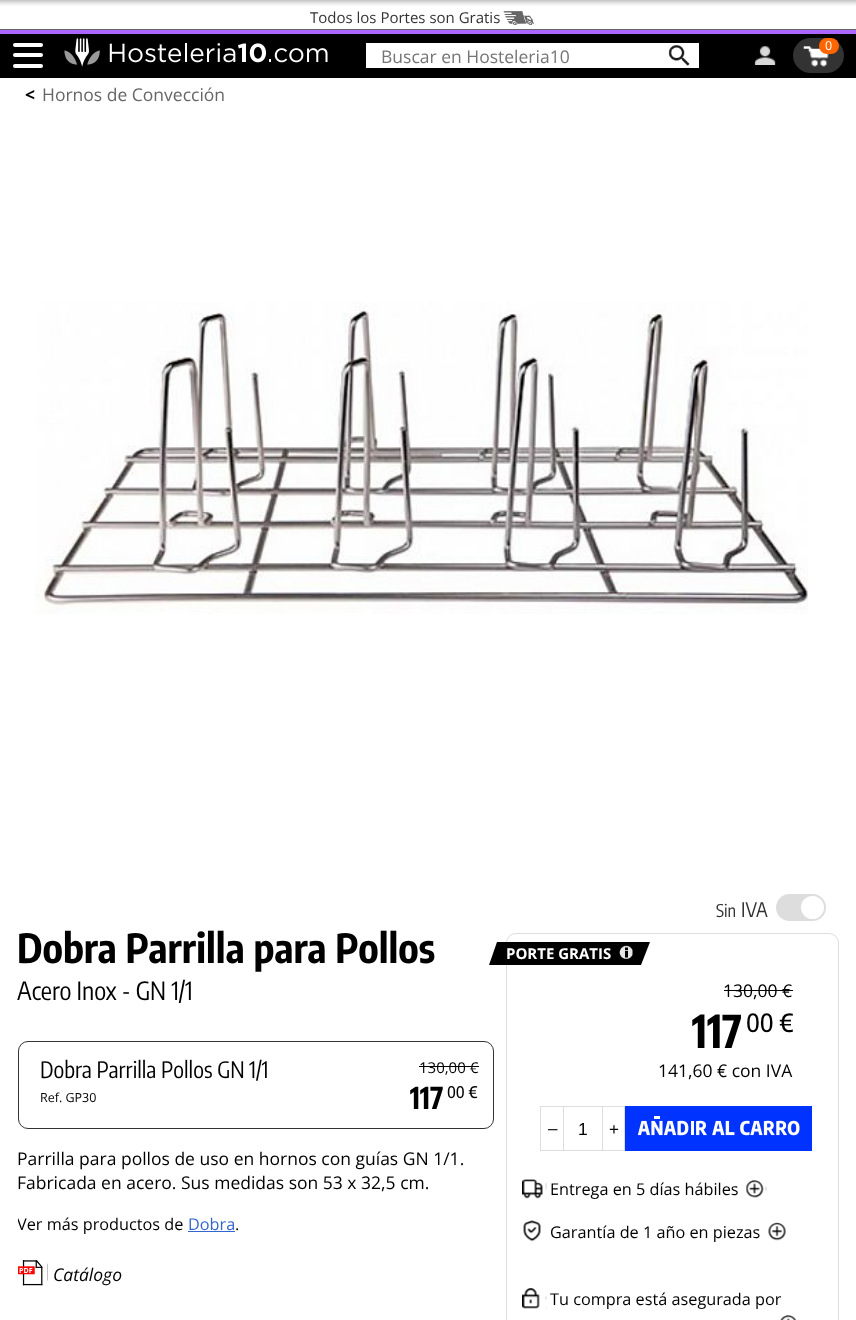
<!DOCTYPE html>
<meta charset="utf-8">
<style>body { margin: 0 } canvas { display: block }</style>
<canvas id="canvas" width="856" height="1320"></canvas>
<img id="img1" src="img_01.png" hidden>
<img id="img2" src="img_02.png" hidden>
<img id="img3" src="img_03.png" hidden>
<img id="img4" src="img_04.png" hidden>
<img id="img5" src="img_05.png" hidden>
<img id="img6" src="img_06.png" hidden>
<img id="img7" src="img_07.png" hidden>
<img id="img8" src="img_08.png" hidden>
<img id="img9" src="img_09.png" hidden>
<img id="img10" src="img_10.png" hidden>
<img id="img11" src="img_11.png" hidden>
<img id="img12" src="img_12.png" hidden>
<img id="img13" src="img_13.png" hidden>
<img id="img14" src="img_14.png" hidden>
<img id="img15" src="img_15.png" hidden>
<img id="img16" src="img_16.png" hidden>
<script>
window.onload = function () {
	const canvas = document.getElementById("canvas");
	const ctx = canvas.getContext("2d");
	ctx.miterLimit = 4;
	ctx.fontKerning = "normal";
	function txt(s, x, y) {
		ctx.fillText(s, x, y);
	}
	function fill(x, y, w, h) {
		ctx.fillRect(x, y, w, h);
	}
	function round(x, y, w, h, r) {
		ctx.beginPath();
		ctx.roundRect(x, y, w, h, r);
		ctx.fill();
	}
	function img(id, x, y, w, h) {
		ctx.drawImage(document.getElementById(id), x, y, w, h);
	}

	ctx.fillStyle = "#FFFFFF";
	fill(0, 0, 856, 1320);
	img("img1", 0, 0, 856, 6);
	img("img2", 503, 11, 32, 14);
	ctx.fillStyle = "#000000";
	fill(0, 34, 856, 44);
	ctx.fillStyle = "#666666";
	fill(0, 29, 856, 1);
	ctx.fillStyle = "#AC66FF";
	fill(0, 30, 856, 4);
	ctx.fillStyle = "#FFFFFF";
	round(13, 43, 30, 4, 2);
	round(13, 53, 30, 4, 2);
	round(13, 64, 30, 4, 2);
	img("img3", 64, 38, 264, 29);
	fill(366, 43, 333, 25);
	img("img4", 668, 45, 22, 21);
	img("img5", 754, 46, 22, 19);
	ctx.fillStyle = "#333333";
	round(793, 38, 51, 35, 17.5);
	img("img6", 803, 46, 26, 21);
	ctx.fillStyle = "#FF6600";
	round(819, 38, 20, 16, 8);
	img("img7", 35, 302, 773, 312);
	ctx.beginPath();
	ctx.roundRect(18.5, 1041.5, 475, 87, 9.5);
	ctx.strokeStyle = "#333333";
	ctx.stroke();
	ctx.fillStyle = "#000000";
	fill(419, 1066, 60, 1);
	ctx.fillStyle = "#3366CC";
	fill(188, 1231, 47, 1);
	img("img8", 18, 1260, 30, 26);
	ctx.beginPath();
	ctx.roundRect(506.5, 933.5, 332, 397, 9.5);
	ctx.strokeStyle = "#DDDDDD";
	ctx.stroke();
	ctx.fillStyle = "#DDDDDD";
	round(776, 894, 50, 27, 13.5);
	ctx.fillStyle = "#FFFFFF";
	ctx.beginPath();
	ctx.arc(812.5, 907.5, 11.5, 0, Math.PI * 2);
	ctx.fill();
	ctx.fillStyle = "#000000";
	ctx.beginPath();
	ctx.moveTo(497, 942);
	ctx.lineTo(650, 942);
	ctx.lineTo(641, 965);
	ctx.lineTo(489, 965);
	ctx.closePath();
	ctx.fill();
	img("img9", 619, 945, 14, 14);
	fill(724, 990, 69, 1);
	ctx.fillStyle = "#DDDDDD";
	fill(540, 1106, 23, 1);
	fill(540, 1150, 23, 1);
	fill(540, 1106, 1, 45);
	ctx.strokeRect(563.5, 1106.5, 39, 44);
	fill(603, 1106, 22, 1);
	fill(624, 1106, 1, 45);
	fill(603, 1150, 22, 1);
	img("img10", 625, 1106, 187, 45);
	img("img11", 522, 1179, 25, 20);
	img("img12", 746, 1180, 21, 18);
	img("img13", 523, 1220, 18, 22);
	img("img14", 768, 1222, 18, 19);
	img("img15", 522, 1288, 25, 21);
	img("img16", 780, 1315, 17, 5);
	ctx.font = "15px Open Sans";
	ctx.fillStyle = "#333333";
	txt("Todos los Portes son Gratis", 310, 23);
	ctx.font = "17.5px Open Sans";
	ctx.fillStyle = "#757575";
	txt("Buscar en Hosteleria10", 381, 63);
	ctx.font = "12.5px Open Sans";
	ctx.fillStyle = "#FFFFFF";
	txt("0", 825, 50);
	ctx.font = "bold 17.5px Open Sans";
	ctx.fillStyle = "#000000";
	txt("<", 25, 101);
	ctx.font = "17.5px Open Sans";
	ctx.fillStyle = "#666666";
	txt("Hornos de Convección", 42, 101);
	ctx.font = "bold 40px Encode Sans Condensed";
	ctx.fillStyle = "#000000";
	txt("Dobra Parrilla para Pollos", 17, 963);
	ctx.font = "25px Encode Sans Condensed";
	txt("Acero Inox - GN 1/1", 17, 1000);
	ctx.font = "22.5px Encode Sans Condensed";
	txt("Dobra Parrilla Pollos GN 1/1", 40, 1078);
	ctx.font = "12.5px Open Sans";
	txt("Ref. GP30", 40, 1102);
	ctx.font = "15px Open Sans";
	txt("130,00 €", 419, 1073);
	ctx.font = "bold 30px Encode Sans Condensed";
	txt("117", 410, 1109);
	ctx.font = "500 16px Encode Sans Condensed";
	txt("00 €", 447, 1098);
	ctx.font = "17.5px Open Sans";
	txt("Parrilla para pollos de uso en hornos con guías GN 1/1.", 17, 1165);
	txt("Fabricada en acero. Sus medidas son 53 x 32,5 cm.", 17, 1189);
	ctx.save();
	ctx.beginPath();
	ctx.rect(18, 925, 476, 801);
	ctx.clip();
	ctx.font = "16.25px Open Sans";
	txt("Ver más productos de", 17, 1230);
	ctx.restore();
	ctx.font = "16.25px Open Sans";
	ctx.fillStyle = "#3366CC";
	txt("Dobra", 188, 1230);
	ctx.fillStyle = "#000000";
	txt(".", 235, 1230);
	ctx.font = "italic 17.5px Open Sans";
	txt("Catálogo", 53, 1281);
	ctx.font = "17.5px Encode Sans Condensed";
	ctx.fillStyle = "#333333";
	txt("Sin", 716, 917);
	ctx.font = "20px Encode Sans Condensed";
	txt("IVA", 741, 917);
	ctx.font = "bold 15px Open Sans";
	ctx.fillStyle = "#FFFFFF";
	txt("PORTE GRATIS", 506, 959);
	ctx.font = "17.5px Open Sans";
	ctx.fillStyle = "#000000";
	txt("130,00 €", 723, 997);
	ctx.font = "bold 45px Encode Sans Condensed";
	txt("117", 692, 1048);
	ctx.font = "500 25px Encode Sans Condensed";
	txt("00 €", 746, 1032);
	ctx.font = "17.5px Open Sans";
	txt("141,60 € con IVA", 658, 1077);
	ctx.font = "17px Liberation Sans";
	txt("–", 548, 1134);
	ctx.font = "17.5px Liberation Sans";
	txt("1", 578, 1135);
	ctx.font = "17px Liberation Sans";
	txt("+", 609, 1135);
	ctx.font = "16.25px Open Sans";
	txt("Entrega en 5 días hábiles", 550, 1195);
	txt("Garantía de 1 año en piezas", 550, 1238);
	txt("Tu compra está asegurada por", 550, 1305);
};
</script>
